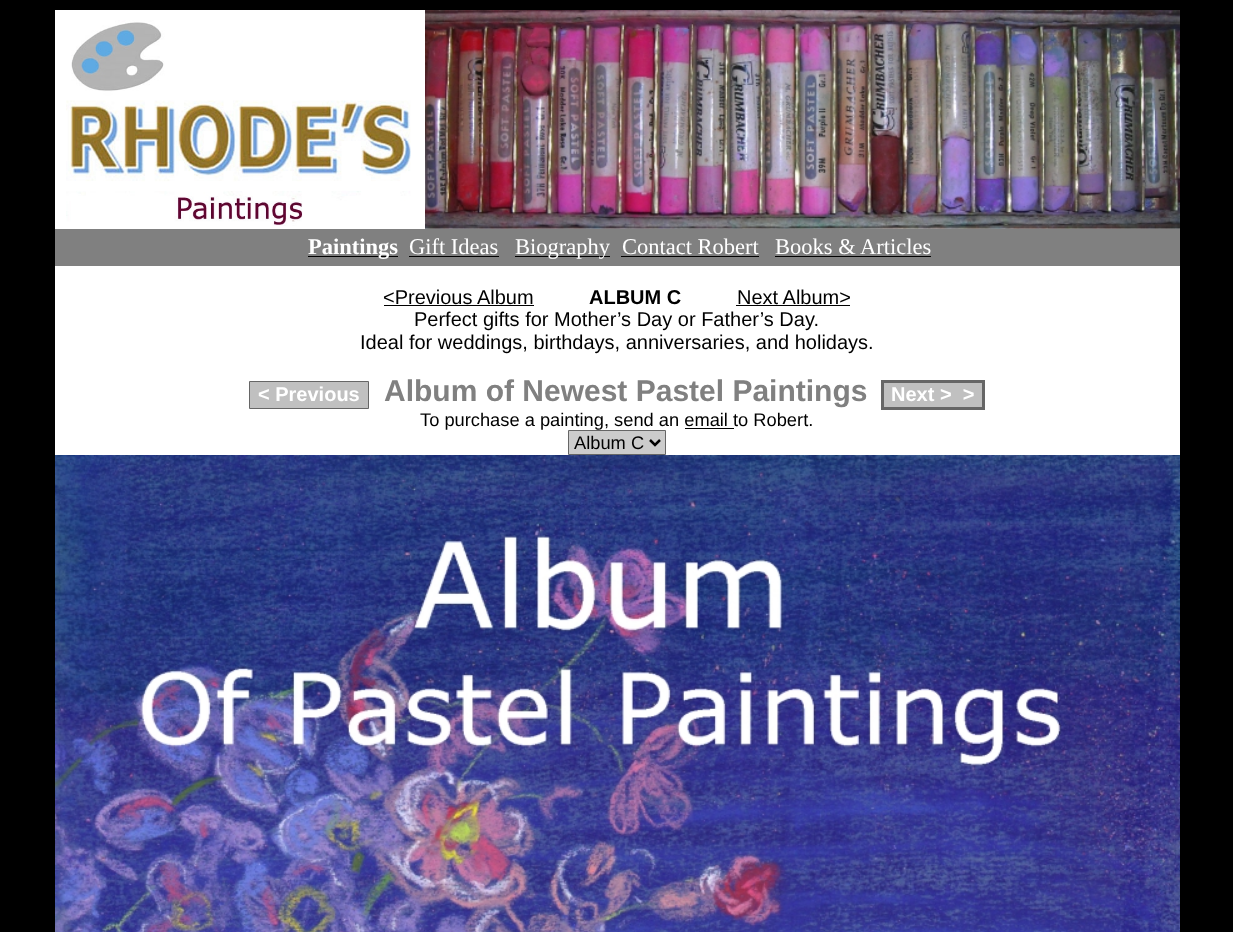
<!DOCTYPE html>
<meta charset="utf-8">
<style>body { margin: 0 } canvas { display: block }</style>
<canvas id="canvas" width="1233" height="932"></canvas>
<img id="img1" src="img_01.png" hidden>
<img id="img2" src="img_02.png" hidden>
<img id="img3" src="img_03.png" hidden>
<script>
window.onload = function () {
	const canvas = document.getElementById("canvas");
	const ctx = canvas.getContext("2d");
	ctx.miterLimit = 4;
	ctx.fontKerning = "normal";
	function txt(s, x, y) {
		ctx.fillText(s, x, y);
	}
	function fill(x, y, w, h) {
		ctx.fillRect(x, y, w, h);
	}
	function img(id, x, y, w, h) {
		ctx.drawImage(document.getElementById(id), x, y, w, h);
	}

	ctx.fillStyle = "#000000";
	fill(0, 0, 1233, 932);
	ctx.fillStyle = "#FFFFFF";
	fill(55, 10, 1125, 445);
	img("img1", 66, 20, 345, 206);
	img("img2", 425, 10, 755, 219);
	ctx.fillStyle = "#808080";
	fill(55, 229, 1125, 37);
	ctx.fillStyle = "#000000";
	fill(308, 256, 90, 1);
	fill(409, 256, 90, 1);
	fill(515, 256, 95, 1);
	fill(621, 256, 138, 1);
	fill(775, 256, 156, 1);
	fill(384, 305, 150, 1);
	fill(736, 305, 114, 1);
	ctx.fillStyle = "#C0C0C0";
	ctx.beginPath();
	ctx.rect(249.5, 381.5, 119, 27);
	ctx.fill();
	ctx.strokeStyle = "#666666";
	ctx.stroke();
	ctx.beginPath();
	ctx.rect(882.5, 381.5, 101, 27);
	ctx.fill();
	ctx.lineWidth = 3;
	ctx.stroke();
	ctx.fillStyle = "#000000";
	fill(685, 428, 49, 1);
	ctx.fillStyle = "#CCCCCC";
	ctx.beginPath();
	ctx.rect(568.5, 430.5, 97, 24);
	ctx.fill();
	ctx.lineWidth = 1;
	ctx.stroke();
	ctx.beginPath();
	ctx.moveTo(650, 440);
	ctx.lineTo(655, 445);
	ctx.lineTo(660, 440);
	ctx.strokeStyle = "#000000";
	ctx.lineWidth = 2.5;
	ctx.stroke();
	img("img3", 55, 455, 1125, 477);
	ctx.font = "bold 22.5px Liberation Serif";
	ctx.fillStyle = "#FFFFFF";
	txt("Paintings", 308, 254);
	ctx.font = "22.5px Liberation Serif";
	txt("Gift Ideas", 409, 254);
	txt("Biography", 515, 254);
	txt("Contact Robert", 622, 254);
	txt("Books & Articles", 775, 254);
	ctx.font = "20px Liberation Sans";
	ctx.fillStyle = "#000000";
	txt("<Previous Album", 383, 304);
	ctx.font = "bold 20px Liberation Sans";
	txt("ALBUM C", 589, 304);
	ctx.font = "20px Liberation Sans";
	txt("Next Album>", 737, 304);
	txt("Perfect gifts for Mother’s Day or Father’s Day.", 414, 326);
	txt("Ideal for weddings, birthdays, anniversaries, and holidays.", 360, 349);
	ctx.font = "bold 20px Liberation Sans";
	ctx.fillStyle = "#FFFFFF";
	txt("< Previous", 258, 401);
	ctx.font = "bold 30px Liberation Sans";
	ctx.fillStyle = "#808080";
	txt("Album of Newest Pastel Paintings", 384, 401);
	ctx.font = "bold 20px Liberation Sans";
	ctx.fillStyle = "#FFFFFF";
	txt("Next >  >", 891, 401);
	ctx.font = "18.3px Liberation Sans";
	ctx.fillStyle = "#000000";
	txt("To purchase a painting, send an email to Robert.", 420, 426);
	txt("Album C", 574, 449);
};
</script>
